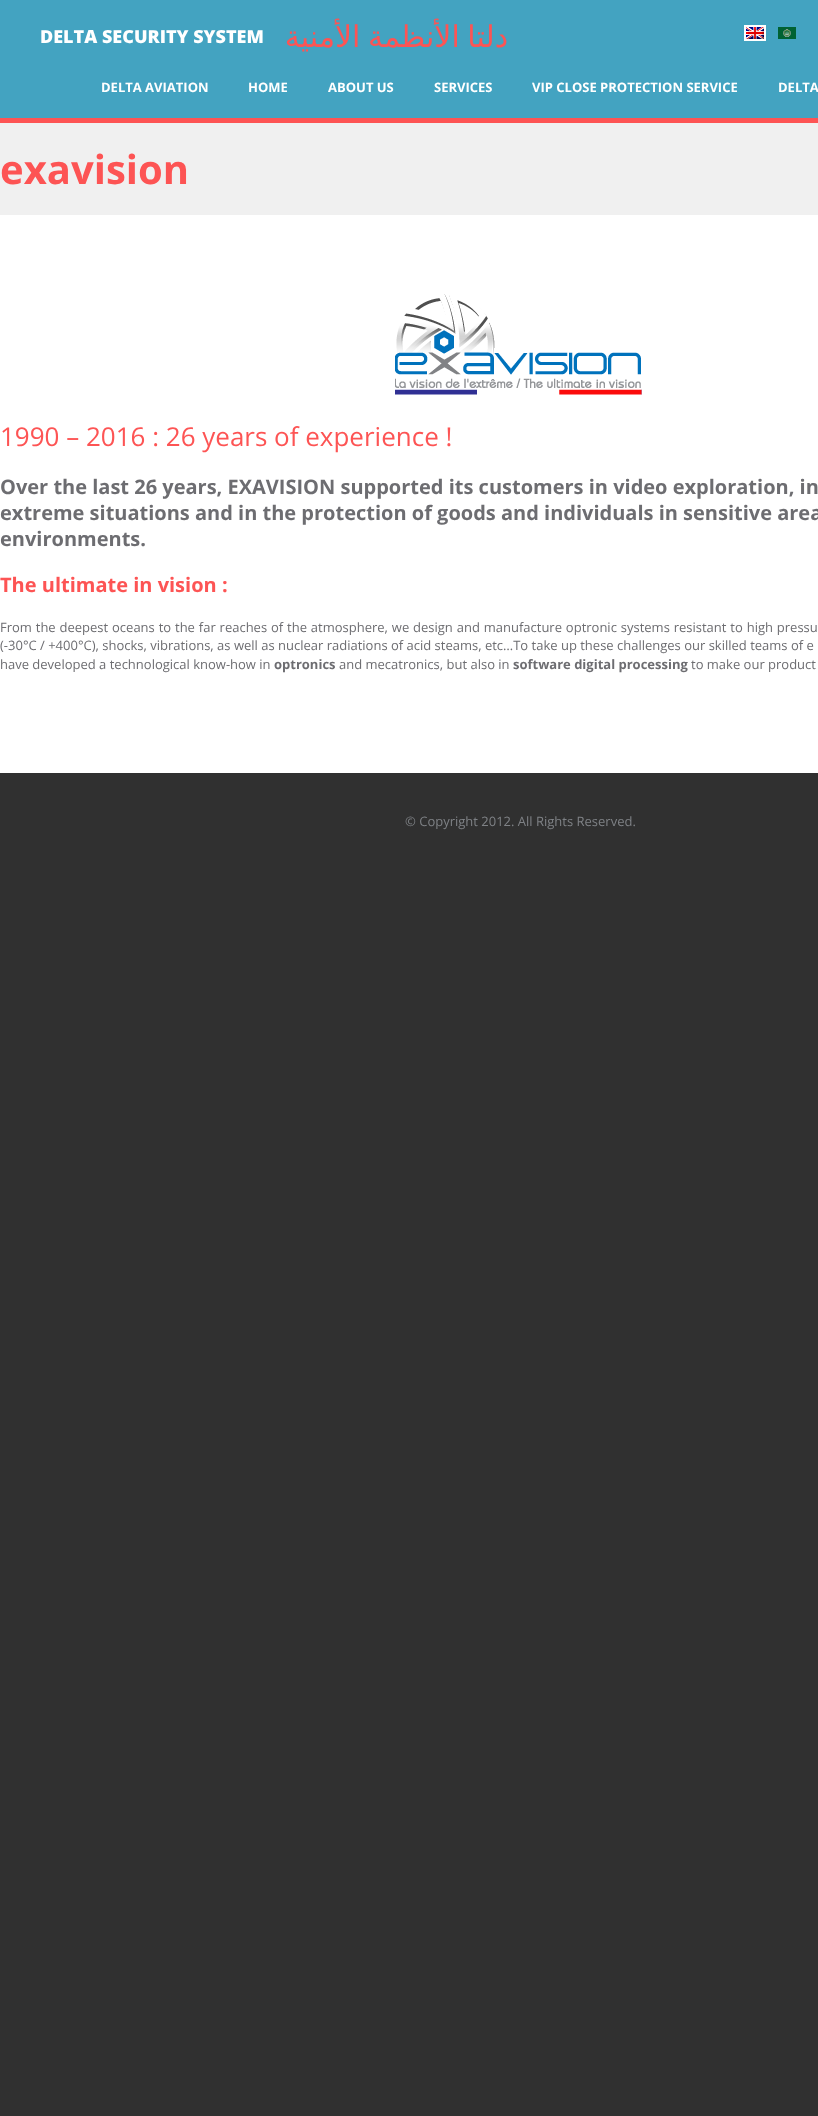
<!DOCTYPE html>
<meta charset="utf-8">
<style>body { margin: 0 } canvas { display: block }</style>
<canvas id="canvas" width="818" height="2116"></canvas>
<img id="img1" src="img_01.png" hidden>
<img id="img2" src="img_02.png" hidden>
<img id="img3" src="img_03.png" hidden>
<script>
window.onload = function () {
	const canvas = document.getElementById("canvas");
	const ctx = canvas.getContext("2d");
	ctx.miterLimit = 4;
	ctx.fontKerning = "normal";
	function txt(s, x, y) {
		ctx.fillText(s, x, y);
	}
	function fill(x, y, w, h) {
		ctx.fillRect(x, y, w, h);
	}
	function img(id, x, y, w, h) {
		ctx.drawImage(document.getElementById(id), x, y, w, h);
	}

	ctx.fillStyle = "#303030";
	fill(0, 0, 818, 2116);
	ctx.fillStyle = "#FFFFFF";
	fill(0, 215, 818, 558);
	ctx.fillStyle = "#43A3C1";
	fill(0, 0, 818, 118);
	ctx.fillStyle = "#FD5454";
	fill(0, 118, 818, 5);
	ctx.strokeStyle = "#FFFFFF";
	ctx.lineWidth = 2;
	ctx.strokeRect(745, 26, 20, 14);
	img("img1", 746, 27, 18, 12);
	img("img2", 778, 27, 18, 12);
	ctx.fillStyle = "#F0F0F0";
	fill(0, 123, 818, 92);
	img("img3", 395, 294, 247, 101);
	ctx.font = "800 18px Open Sans";
	ctx.fillStyle = "#FFFFFF";
	txt("DELTA SECURITY SYSTEM", 40, 43);
	ctx.wordSpacing = "-2px";
	ctx.direction = "rtl";
	ctx.font = "30px DejaVu Sans";
	ctx.fillStyle = "#FD5454";
	txt("دلتا الأنظمة الأمنية", 508, 47);
	ctx.wordSpacing = "0px";
	ctx.direction = "ltr";
	ctx.font = "bold 13px Open Sans";
	ctx.fillStyle = "#FFFFFF";
	txt("DELTA AVIATION", 101, 92);
	txt("HOME", 248, 92);
	txt("ABOUT US", 328, 92);
	txt("SERVICES", 434, 92);
	txt("VIP CLOSE PROTECTION SERVICE", 532, 92);
	txt("DELTA", 778, 92);
	ctx.font = "bold 40px Open Sans";
	ctx.fillStyle = "#FD5454";
	txt("exavision", 0, 184);
	ctx.font = "26px Open Sans";
	txt("1990 – 2016 : 26 years of experience !", 0, 446);
	ctx.font = "bold 20px Open Sans";
	ctx.fillStyle = "#6D6D71";
	txt("Over the last 26 years, EXAVISION supported its customers in video exploration, in", 0, 494);
	txt("extreme situations and in the protection of goods and individuals in sensitive area", 0, 520);
	txt("environments.", 0, 546);
	ctx.fillStyle = "#FD5454";
	txt("The ultimate in vision :", 0, 592);
	ctx.wordSpacing = "0.5px";
	ctx.font = "13px Open Sans";
	ctx.fillStyle = "#6D6D71";
	txt("From the deepest oceans to the far reaches of the atmosphere, we design and manufacture optronic systems resistant to high pressu", 0, 632);
	ctx.wordSpacing = "0px";
	txt("(-30°C / +400°C), shocks, vibrations, as well as nuclear radiations of acid steams, etc…To take up these challenges our skilled teams of e", 0, 650);
	txt("have developed a technological know-how in", 0, 669);
	ctx.font = "bold 13px Open Sans";
	txt("optronics", 274, 669);
	ctx.font = "13px Open Sans";
	txt("and mecatronics, but also in", 339, 669);
	ctx.font = "bold 13px Open Sans";
	txt("software digital processing", 513, 669);
	ctx.font = "13px Open Sans";
	txt("to make our product", 691, 669);
	ctx.fillStyle = "#7E8185";
	txt("© Copyright 2012. All Rights Reserved.", 405, 826);
};
</script>
